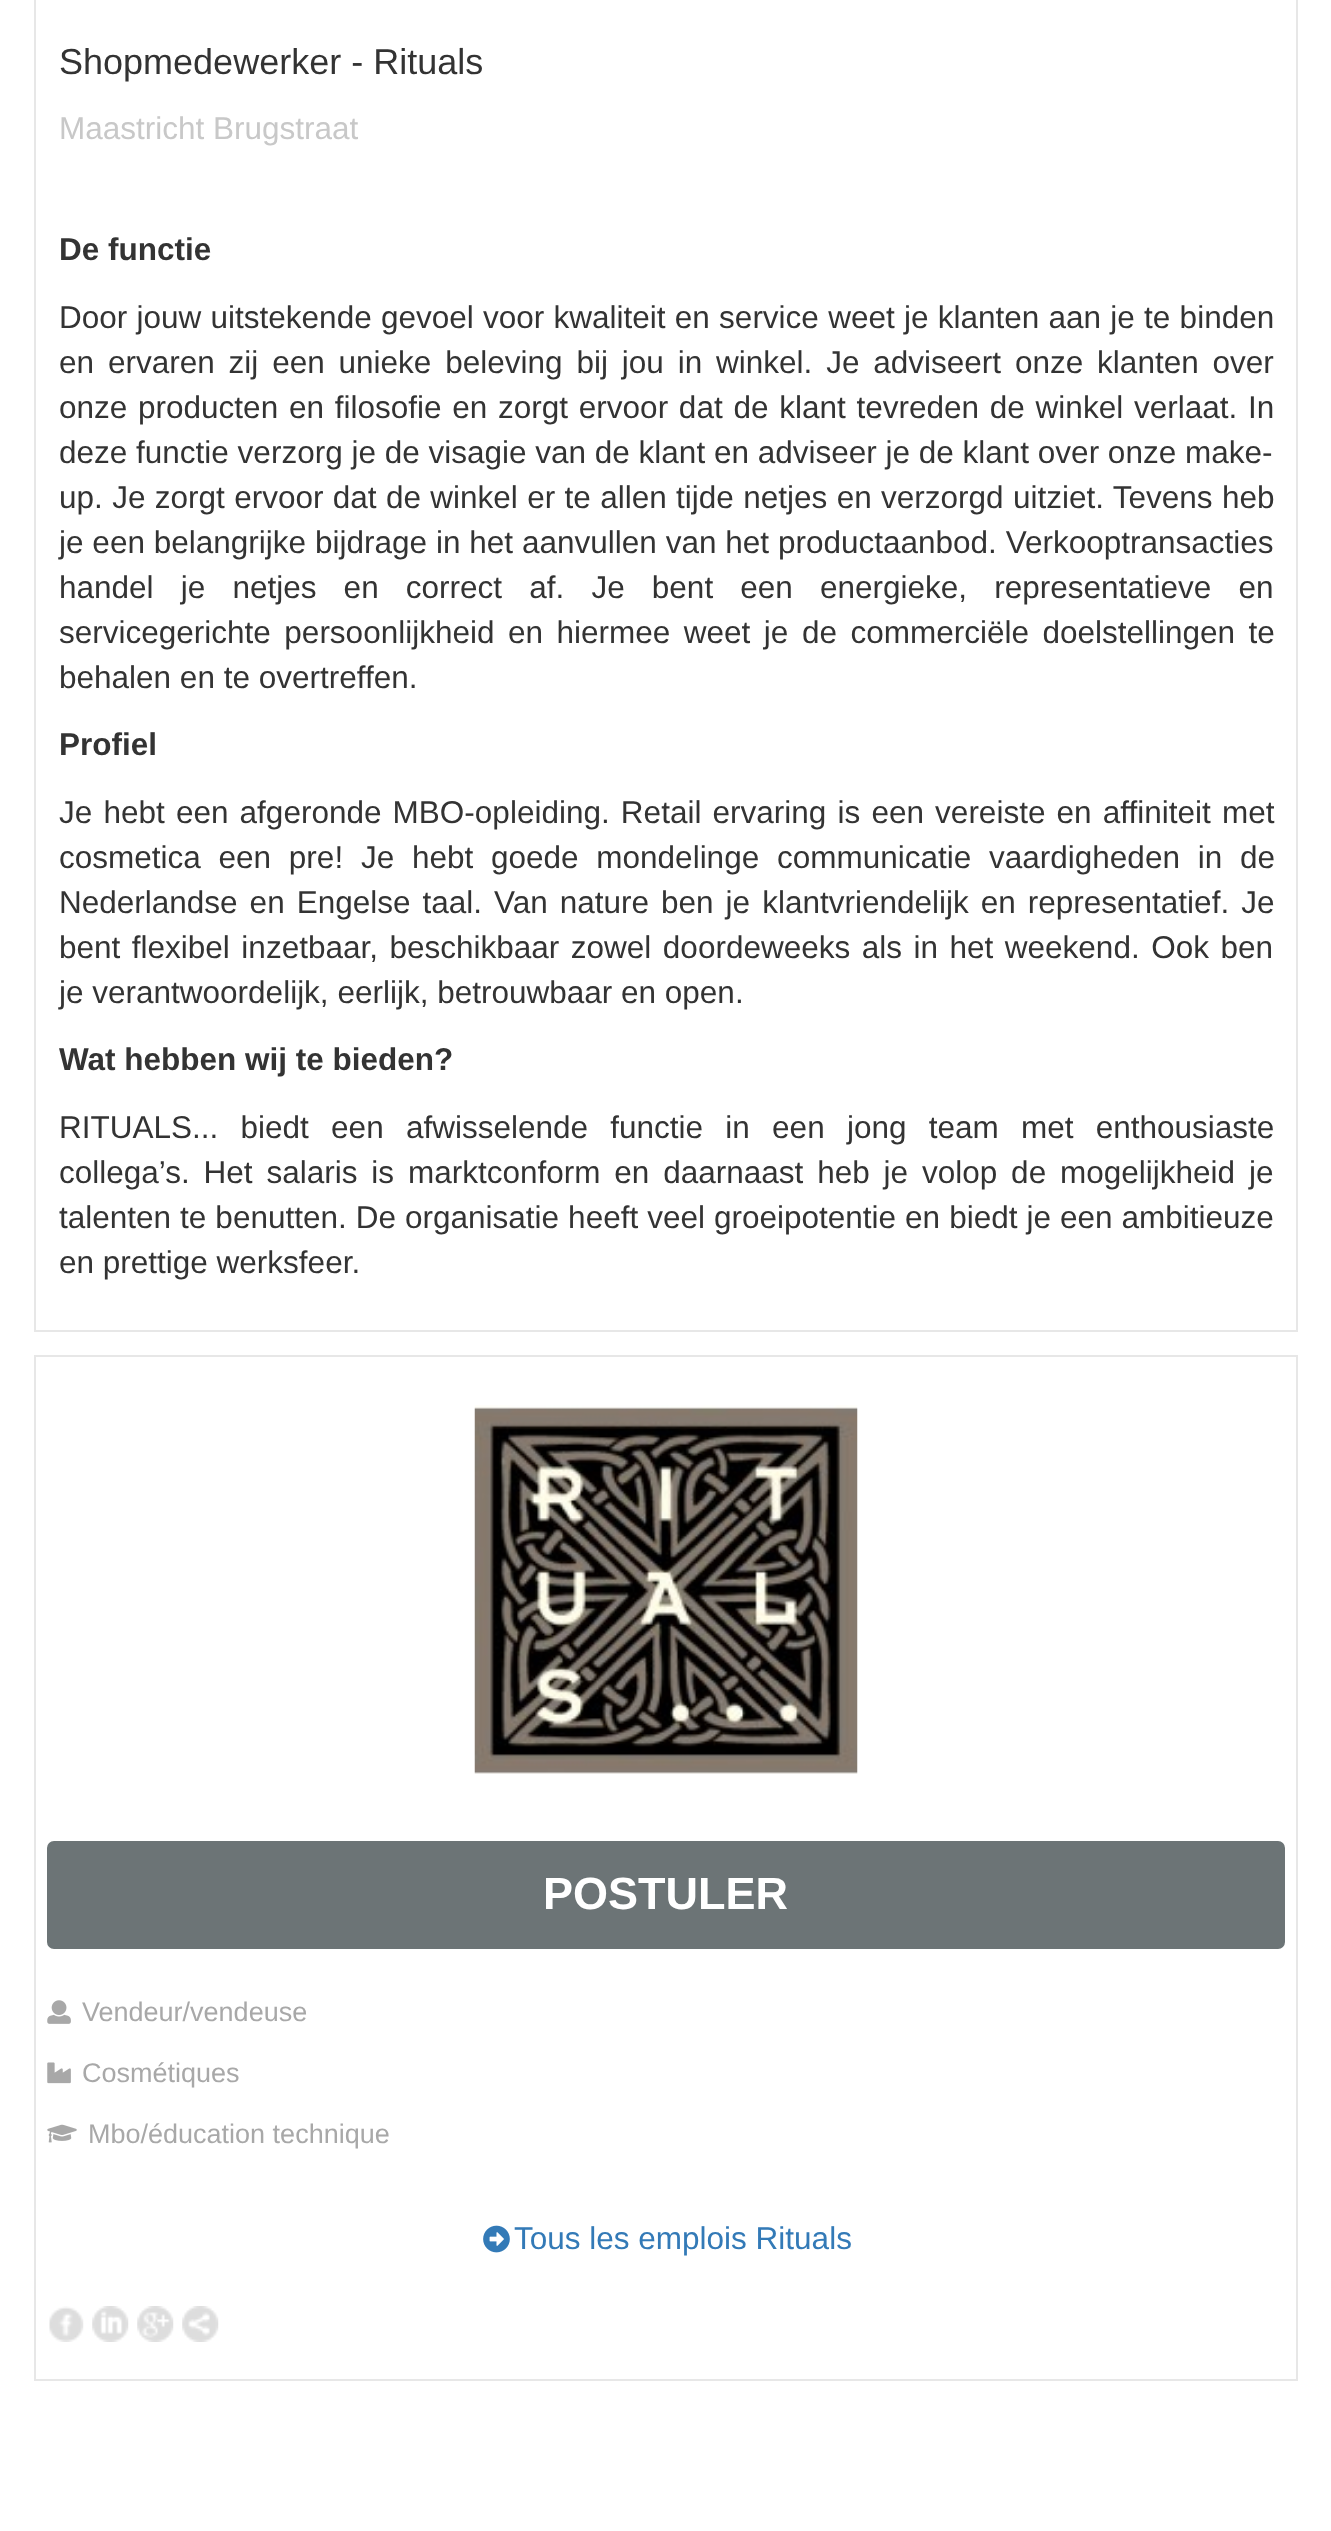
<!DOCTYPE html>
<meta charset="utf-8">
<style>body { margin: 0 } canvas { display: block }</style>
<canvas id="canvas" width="1331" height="2531"></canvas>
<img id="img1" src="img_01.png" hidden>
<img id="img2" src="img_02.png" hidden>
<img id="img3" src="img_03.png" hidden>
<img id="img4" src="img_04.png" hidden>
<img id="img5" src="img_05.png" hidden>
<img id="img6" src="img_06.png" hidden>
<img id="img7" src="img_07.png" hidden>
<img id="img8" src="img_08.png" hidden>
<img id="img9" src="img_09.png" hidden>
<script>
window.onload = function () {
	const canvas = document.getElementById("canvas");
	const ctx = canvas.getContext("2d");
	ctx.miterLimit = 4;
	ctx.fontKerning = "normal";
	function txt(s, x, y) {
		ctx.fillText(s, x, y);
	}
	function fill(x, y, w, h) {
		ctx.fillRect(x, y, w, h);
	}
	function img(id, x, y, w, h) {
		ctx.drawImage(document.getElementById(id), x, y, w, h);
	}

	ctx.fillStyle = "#FFFFFF";
	fill(0, 0, 1331, 2531);
	ctx.strokeStyle = "#E7E7E7";
	ctx.lineWidth = 2;
	ctx.strokeRect(35, -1, 1262, 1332);
	ctx.strokeRect(35, 1356, 1262, 1024);
	img("img1", 474, 1405, 384, 369);
	ctx.fillStyle = "#6C7476";
	ctx.beginPath();
	ctx.roundRect(48, 1842, 1236, 106, 6);
	ctx.fill();
	ctx.strokeStyle = "#6C7476";
	ctx.stroke();
	img("img2", 47, 2000, 24, 24);
	img("img3", 47, 2062, 24, 22);
	img("img4", 47, 2124, 30, 19);
	img("img5", 483, 2225, 27, 28);
	img("img6", 49, 2306, 35, 36);
	img("img7", 92, 2306, 37, 36);
	img("img8", 137, 2306, 37, 36);
	img("img9", 182, 2306, 37, 36);
	ctx.font = "36px Liberation Sans";
	ctx.fillStyle = "#333333";
	txt("Shopmedewerker - Rituals", 59, 74);
	ctx.font = "31.5px Liberation Sans";
	ctx.fillStyle = "#C8C8C8";
	txt("Maastricht Brugstraat", 59, 139);
	ctx.font = "bold 31.5px Liberation Sans";
	ctx.fillStyle = "#333333";
	txt("De functie", 59, 260);
	ctx.wordSpacing = "0.5px";
	ctx.font = "31.5px Liberation Sans";
	txt("Door jouw uitstekende gevoel voor kwaliteit en service weet je klanten aan je te binden", 59, 328);
	ctx.wordSpacing = "5.1px";
	txt("en ervaren zij een unieke beleving bij jou in winkel. Je adviseert onze klanten over", 59, 373);
	ctx.wordSpacing = "2px";
	txt("onze producten en filosofie en zorgt ervoor dat de klant tevreden de winkel verlaat. In", 59, 418);
	ctx.wordSpacing = "0px";
	txt("deze functie verzorg je de visagie van de klant en adviseer je de klant over onze make-", 59, 463);
	ctx.wordSpacing = "0.6px";
	txt("up. Je zorgt ervoor dat de winkel er te allen tijde netjes en verzorgd uitziet. Tevens heb", 59, 508);
	ctx.wordSpacing = "0.1px";
	txt("je een belangrijke bijdrage in het aanvullen van het productaanbod. Verkooptransacties", 59, 553);
	ctx.wordSpacing = "18.4px";
	txt("handel je netjes en correct af. Je bent een energieke, representatieve en", 59, 598);
	ctx.wordSpacing = "4.75px";
	txt("servicegerichte persoonlijkheid en hiermee weet je de commerciële doelstellingen te", 59, 643);
	ctx.wordSpacing = "0px";
	txt("behalen en te overtreffen.", 59, 688);
	ctx.font = "bold 31.5px Liberation Sans";
	txt("Profiel", 59, 755);
	ctx.wordSpacing = "2.4px";
	ctx.font = "31.5px Liberation Sans";
	txt("Je hebt een afgeronde MBO-opleiding. Retail ervaring is een vereiste en affiniteit met", 59, 823);
	ctx.wordSpacing = "9px";
	txt("cosmetica een pre! Je hebt goede mondelinge communicatie vaardigheden in de", 59, 868);
	ctx.wordSpacing = "3.25px";
	txt("Nederlandse en Engelse taal. Van nature ben je klantvriendelijk en representatief. Je", 59, 913);
	ctx.wordSpacing = "2.75px";
	txt("bent flexibel inzetbaar, beschikbaar zowel doordeweeks als in het weekend. Ook ben", 59, 958);
	ctx.wordSpacing = "0px";
	txt("je verantwoordelijk, eerlijk, betrouwbaar en open.", 59, 1003);
	ctx.font = "bold 31.5px Liberation Sans";
	txt("Wat hebben wij te bieden?", 59, 1070);
	ctx.wordSpacing = "13.5px";
	ctx.font = "31.5px Liberation Sans";
	txt("RITUALS... biedt een afwisselende functie in een jong team met enthousiaste", 59, 1138);
	ctx.wordSpacing = "5.1px";
	txt("collega’s. Het salaris is marktconform en daarnaast heb je volop de mogelijkheid je", 59, 1183);
	ctx.wordSpacing = "0.25px";
	txt("talenten te benutten. De organisatie heeft veel groeipotentie en biedt je een ambitieuze", 59, 1228);
	ctx.wordSpacing = "0px";
	txt("en prettige werksfeer.", 59, 1273);
	ctx.font = "bold 45px Liberation Sans";
	ctx.fillStyle = "#FFFFFF";
	txt("POSTULER", 543, 1909);
	ctx.font = "27px Liberation Sans";
	ctx.fillStyle = "#A8A8A8";
	txt("Vendeur/vendeuse", 82, 2021);
	txt("Cosmétiques", 82, 2082);
	txt("Mbo/éducation technique", 88, 2143);
	ctx.font = "31.5px Liberation Sans";
	ctx.fillStyle = "#337AB7";
	txt("Tous les emplois Rituals", 514, 2249);
};
</script>
